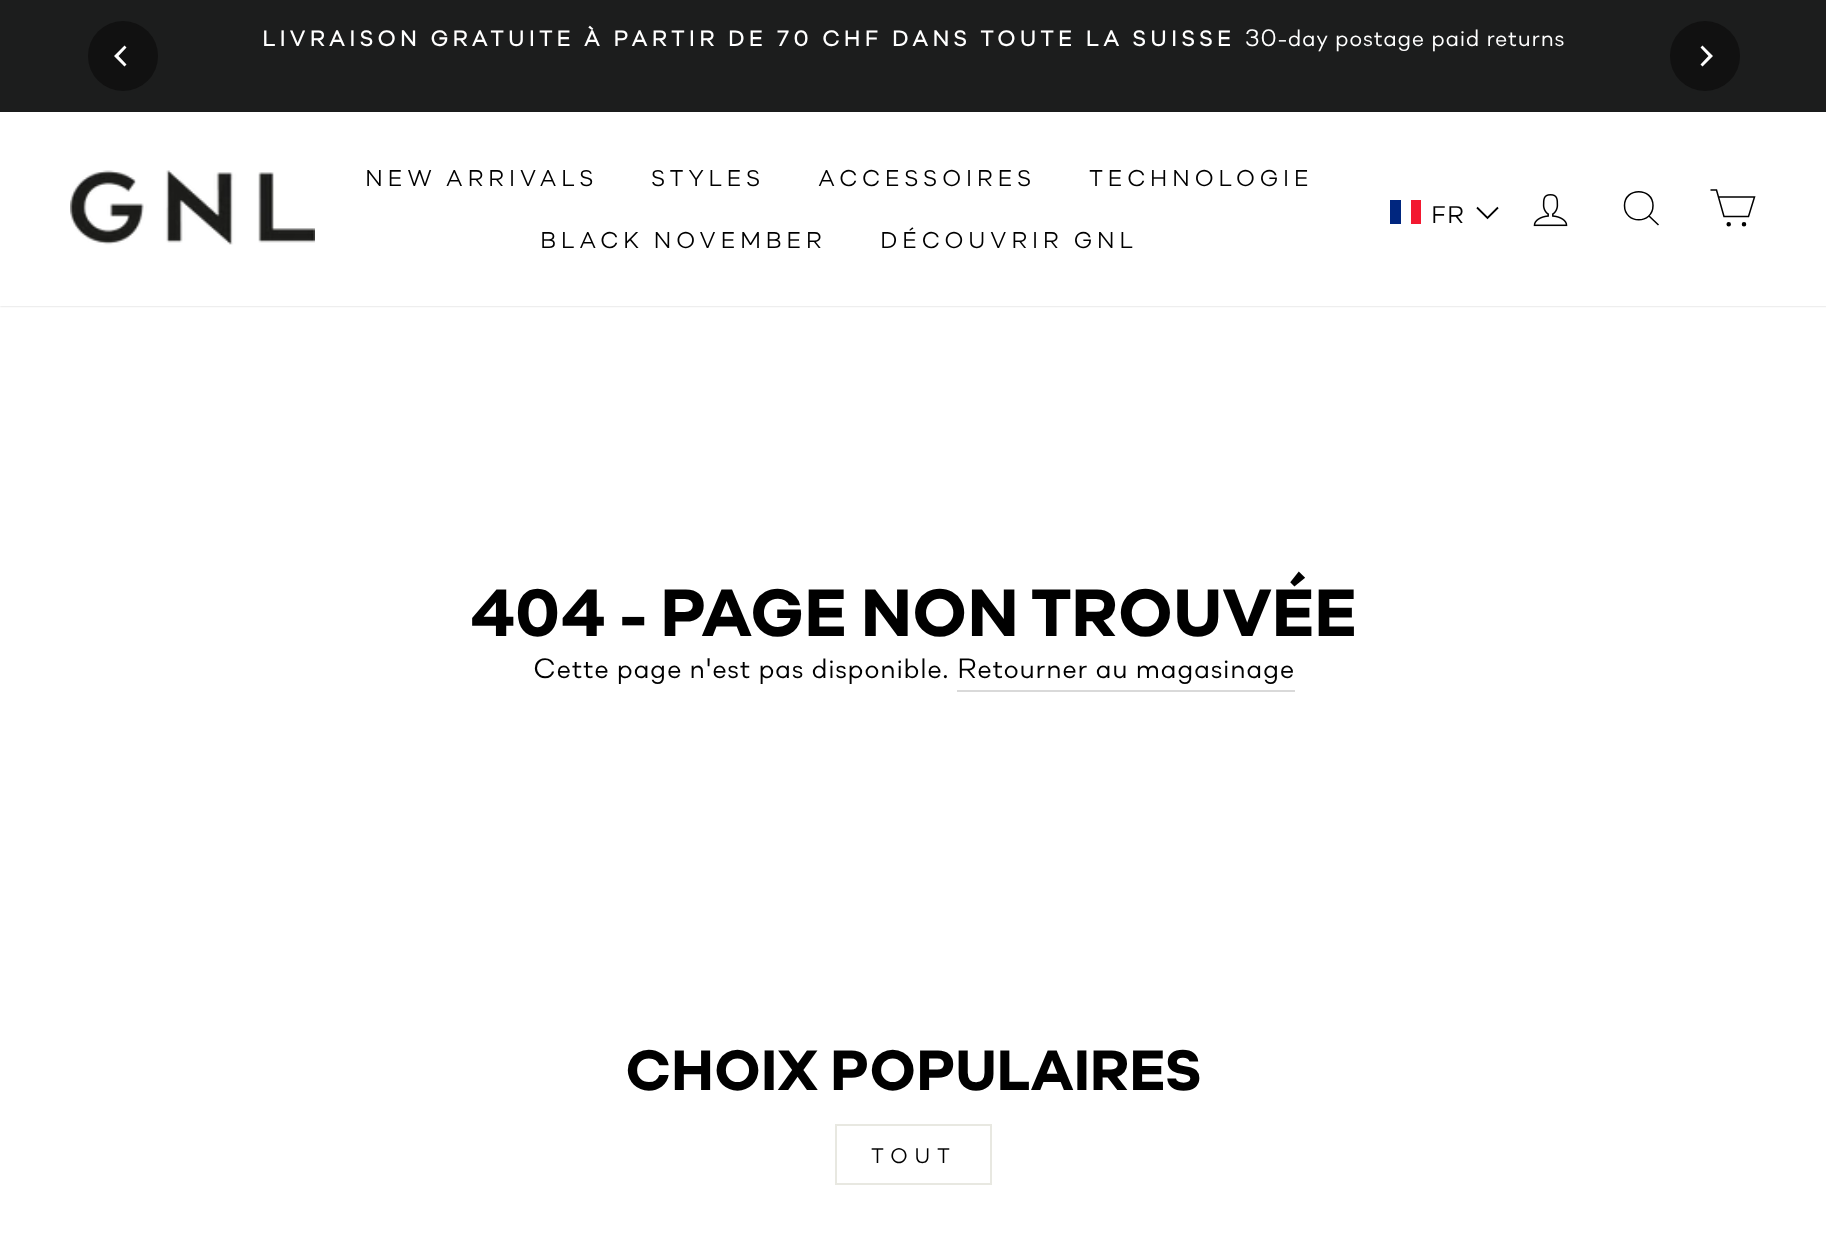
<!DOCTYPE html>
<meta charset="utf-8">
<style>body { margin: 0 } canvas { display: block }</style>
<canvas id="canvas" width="1826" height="1254"></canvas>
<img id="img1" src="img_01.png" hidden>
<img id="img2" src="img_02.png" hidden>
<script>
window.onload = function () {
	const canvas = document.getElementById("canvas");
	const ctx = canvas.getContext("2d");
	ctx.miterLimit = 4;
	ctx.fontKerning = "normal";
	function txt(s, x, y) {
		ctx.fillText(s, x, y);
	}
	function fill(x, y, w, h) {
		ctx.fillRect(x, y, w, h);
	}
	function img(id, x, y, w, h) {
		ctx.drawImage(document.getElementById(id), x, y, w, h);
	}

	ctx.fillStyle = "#FFFFFF";
	fill(0, 0, 1826, 1254);
	ctx.fillStyle = "#1C1D1D";
	fill(0, 0, 1826, 112);
	ctx.fillStyle = "#111111";
	ctx.beginPath();
	ctx.arc(123, 56, 35, 0, Math.PI * 2);
	ctx.fill();
	ctx.fillStyle = "#FFFFFF";
	ctx.beginPath();
	ctx.moveTo(114, 56);
	ctx.lineTo(124.5, 66.5);
	ctx.lineTo(126.5, 64.5);
	ctx.lineTo(118.5, 56);
	ctx.lineTo(126.5, 47.5);
	ctx.lineTo(124.5, 45.5);
	ctx.closePath();
	ctx.fill();
	ctx.fillStyle = "#111111";
	ctx.beginPath();
	ctx.arc(1705, 56, 35, 0, Math.PI * 2);
	ctx.fill();
	ctx.fillStyle = "#FFFFFF";
	ctx.beginPath();
	ctx.moveTo(1713, 56);
	ctx.lineTo(1702.5, 45.5);
	ctx.lineTo(1700.5, 47.5);
	ctx.lineTo(1708.5, 56);
	ctx.lineTo(1700.5, 64.5);
	ctx.lineTo(1702.5, 66.5);
	ctx.closePath();
	ctx.fill();
	ctx.save();
	ctx.beginPath();
	ctx.moveTo(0, 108);
	ctx.lineTo(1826, 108);
	ctx.lineTo(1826, 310);
	ctx.lineTo(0, 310);
	ctx.closePath();
	ctx.moveTo(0, 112);
	ctx.lineTo(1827, 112);
	ctx.lineTo(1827, 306);
	ctx.lineTo(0, 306);
	ctx.closePath();
	ctx.clip("evenodd");
	ctx.fillStyle = "rgba(0, 0, 0, 0.2)";
	ctx.filter = "blur(1px)";
	ctx.beginPath();
	ctx.rect(0, 112, 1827, 194);
	ctx.fill();
	ctx.filter = "none";
	ctx.restore();
	img("img1", 70, 170, 245, 75);
	ctx.fillStyle = "#00267F";
	fill(1390, 200, 11, 24);
	ctx.fillStyle = "#F31830";
	fill(1411, 200, 10, 24);
	ctx.beginPath();
	ctx.moveTo(1477, 207.5);
	ctx.lineTo(1487.5, 218);
	ctx.lineTo(1498, 207.5);
	ctx.strokeStyle = "#000000";
	ctx.lineWidth = 1.8;
	ctx.stroke();
	img("img2", 1533, 194, 35, 33);
	ctx.beginPath();
	ctx.moveTo(1653, 205.5);
	ctx.bezierCurveTo(1653, 224.5, 1624.5, 224.5, 1624.5, 205.5);
	ctx.bezierCurveTo(1624.5, 187, 1653, 187, 1653, 205.5);
	ctx.closePath();
	ctx.moveTo(1658.5, 225);
	ctx.lineTo(1649, 216);
	ctx.lineWidth = 1.5;
	ctx.stroke();
	ctx.beginPath();
	ctx.moveTo(1718.5, 197);
	ctx.lineTo(1754.5, 197);
	ctx.lineTo(1748.5, 216.5);
	ctx.lineTo(1724, 216.5);
	ctx.lineTo(1716.5, 190);
	ctx.lineTo(1710.5, 190);
	ctx.stroke();
	ctx.fillStyle = "#000000";
	ctx.beginPath();
	ctx.arc(1728.7, 224.3, 1.5, 0, Math.PI * 2);
	ctx.fill();
	ctx.stroke();
	ctx.beginPath();
	ctx.arc(1744, 224.3, 1.5, 0, Math.PI * 2);
	ctx.fill();
	ctx.stroke();
	ctx.fillStyle = "#D9D9D9";
	fill(957, 690, 338, 2);
	ctx.strokeStyle = "#E8E8E1";
	ctx.lineWidth = 2;
	ctx.strokeRect(836, 1125, 155, 59);
	ctx.letterSpacing = "4.28px";
	ctx.font = "bold 21.4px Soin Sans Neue";
	ctx.fillStyle = "#FFFFFF";
	txt("LIVRAISON GRATUITE À PARTIR DE 70 CHF DANS TOUTE LA SUISSE", 262, 46);
	ctx.letterSpacing = "0.7px";
	ctx.font = "23.75px Soin Sans Neue";
	txt("30-day postage paid returns", 1245, 46);
	ctx.letterSpacing = "4.5px";
	ctx.font = "22.75px Soin Sans Neue";
	ctx.fillStyle = "#000000";
	txt("NEW ARRIVALS", 365, 186);
	txt("STYLES", 651, 186);
	txt("ACCESSOIRES", 818, 186);
	txt("TECHNOLOGIE", 1089, 186);
	txt("BLACK NOVEMBER", 540, 248);
	txt("DÉCOUVRIR GNL", 880, 248);
	ctx.letterSpacing = "0.7px";
	ctx.font = "24px Soin Sans Neue";
	txt("FR", 1431, 223);
	ctx.letterSpacing = "0px";
	ctx.font = "900 66.5px Soin Sans Neue";
	txt("404 - PAGE NON TROUVÉE", 470, 636);
	ctx.letterSpacing = "0.7px";
	ctx.font = "28px Soin Sans Neue";
	txt("Cette page n'est pas disponible. Retourner au magasinage", 533, 678);
	ctx.letterSpacing = "0px";
	ctx.font = "900 56.5px Soin Sans Neue";
	txt("CHOIX POPULAIRES", 625, 1090);
	ctx.letterSpacing = "6.5px";
	ctx.font = "21px Soin Sans Neue";
	txt("TOUT", 871, 1163);
};
</script>
